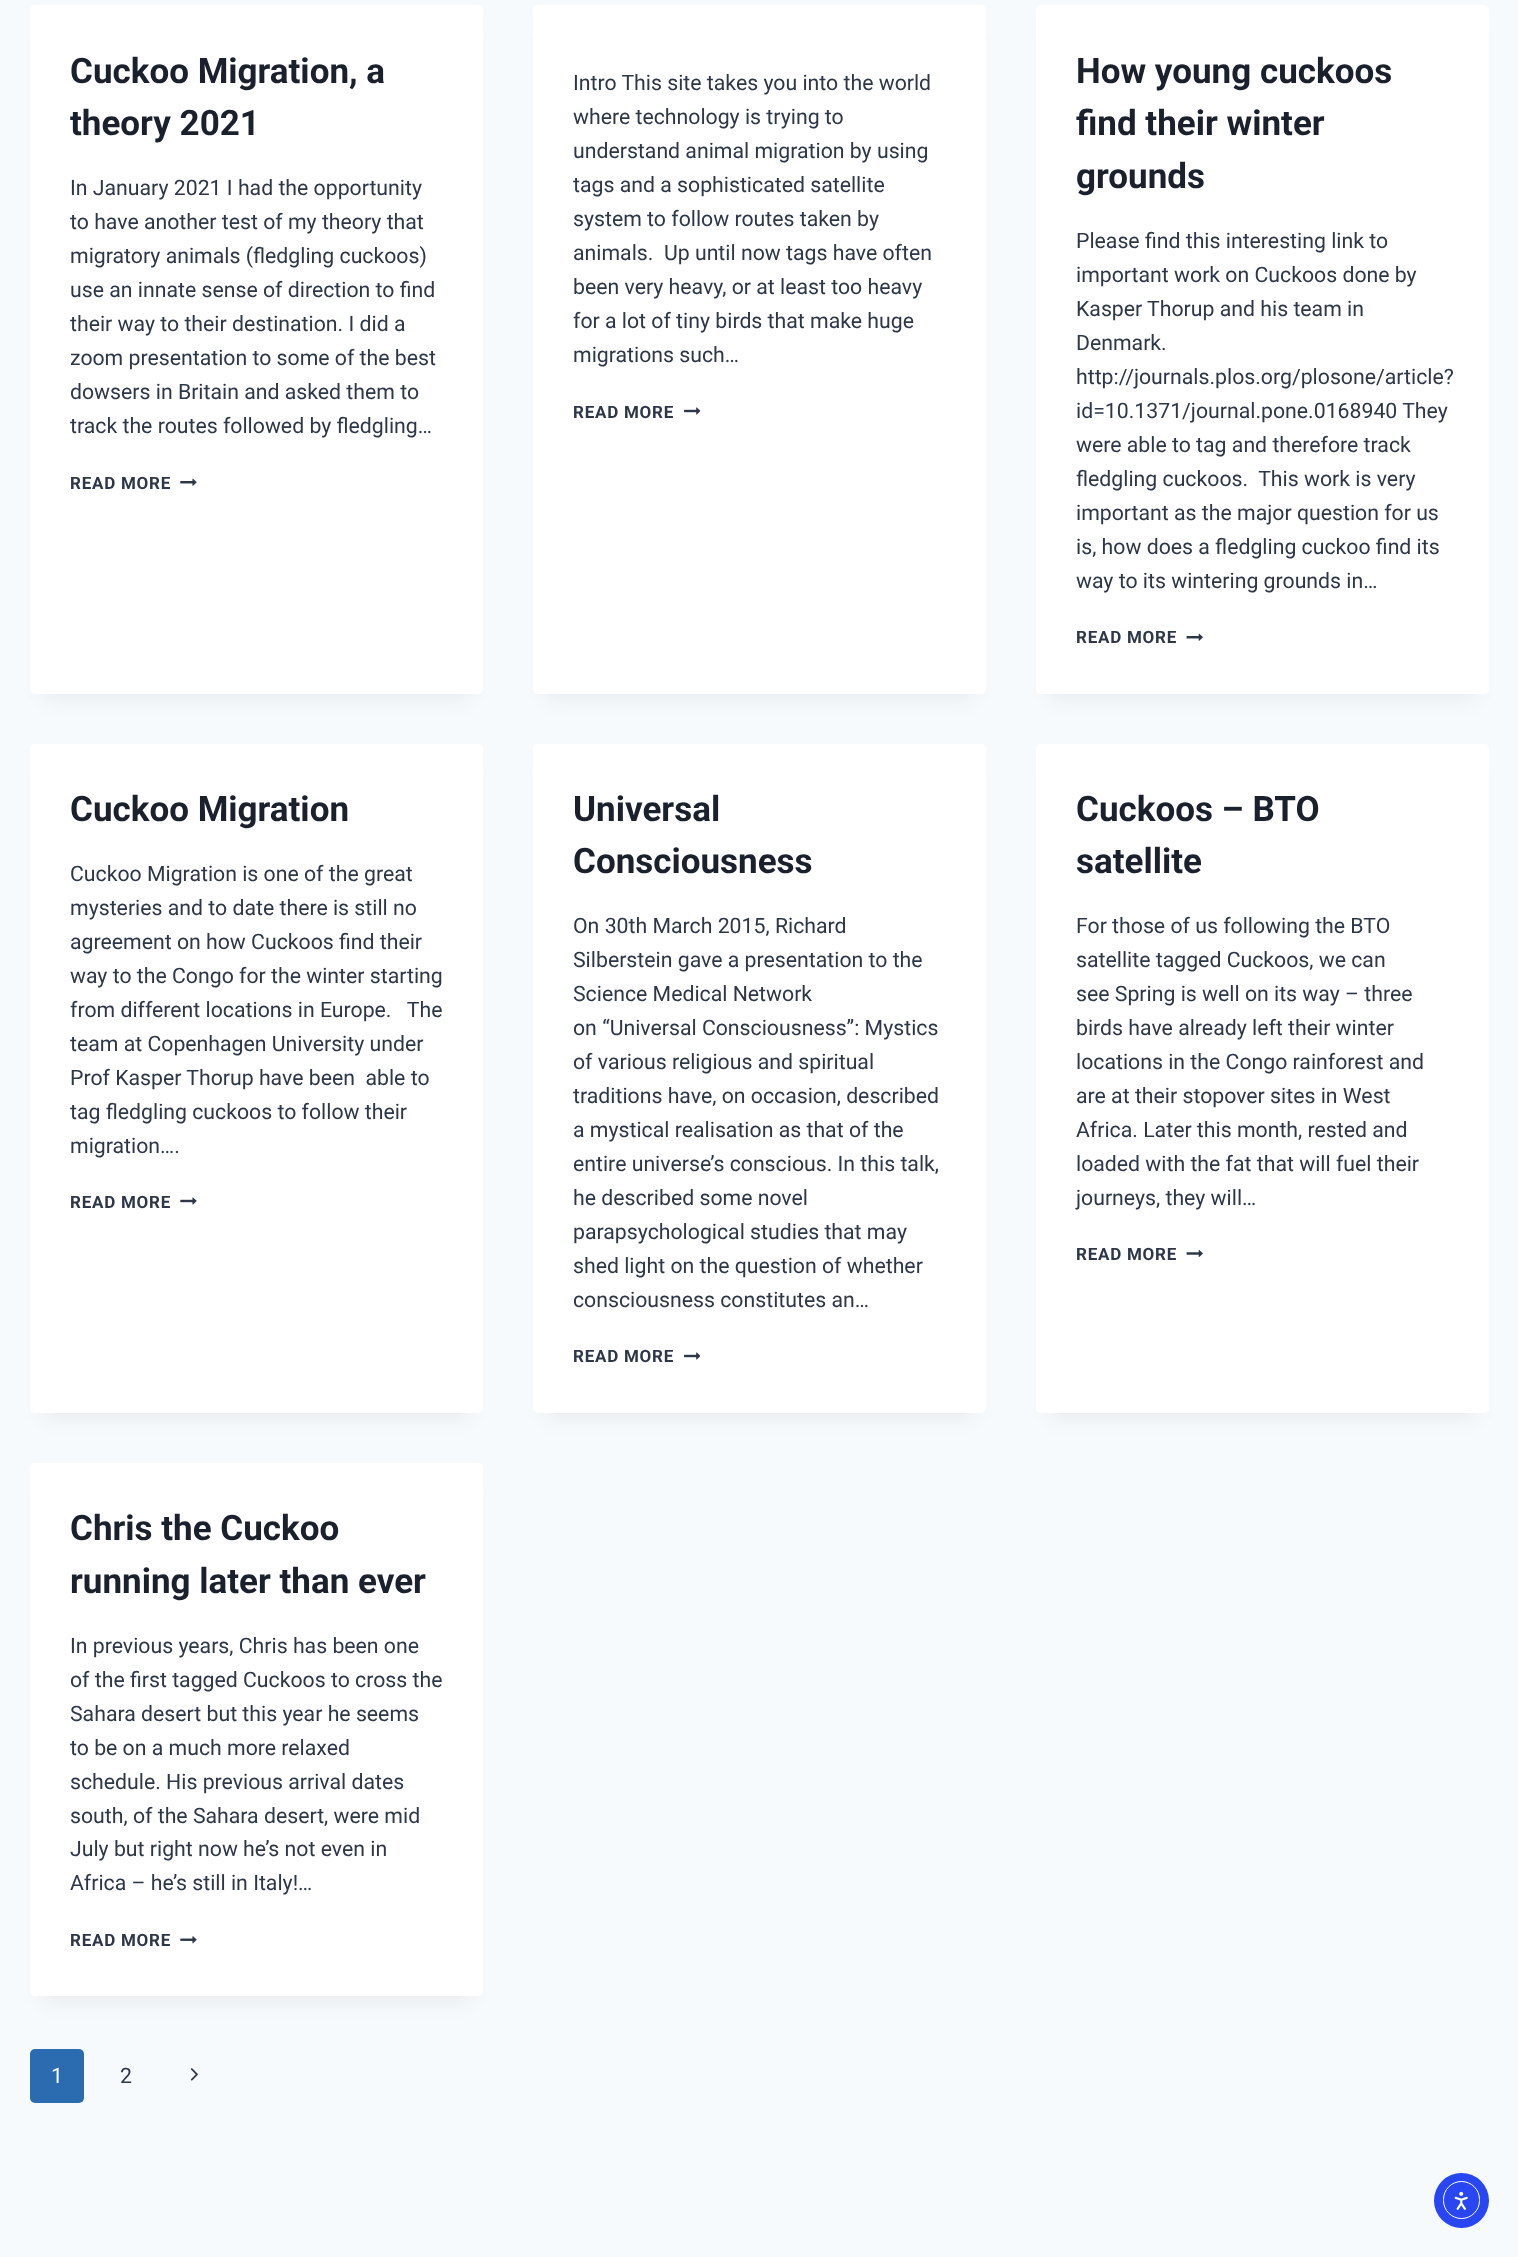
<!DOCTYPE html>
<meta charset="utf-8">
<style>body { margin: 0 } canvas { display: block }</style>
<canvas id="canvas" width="1518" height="2257"></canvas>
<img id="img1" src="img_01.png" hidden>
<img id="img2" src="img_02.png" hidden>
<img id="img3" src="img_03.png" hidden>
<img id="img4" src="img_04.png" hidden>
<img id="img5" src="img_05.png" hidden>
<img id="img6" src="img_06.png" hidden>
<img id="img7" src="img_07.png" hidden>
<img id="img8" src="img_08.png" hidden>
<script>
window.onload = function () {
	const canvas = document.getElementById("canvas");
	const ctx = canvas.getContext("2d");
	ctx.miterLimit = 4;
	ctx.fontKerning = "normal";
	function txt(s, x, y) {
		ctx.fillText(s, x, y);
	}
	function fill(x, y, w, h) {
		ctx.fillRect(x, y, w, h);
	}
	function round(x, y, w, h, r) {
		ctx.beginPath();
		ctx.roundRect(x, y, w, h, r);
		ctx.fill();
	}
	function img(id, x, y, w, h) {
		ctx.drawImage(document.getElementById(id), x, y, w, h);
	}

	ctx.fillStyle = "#F7FAFC";
	fill(0, 0, 1518, 2257);
	ctx.fillStyle = "rgba(0, 0, 0, 0.05)";
	ctx.filter = "blur(9.5px)";
	ctx.beginPath();
	ctx.rect(43, 36, 427, 664);
	ctx.fill();
	ctx.filter = "none";
	ctx.fillStyle = "#FFFFFF";
	round(30, 5, 453, 689, 5);
	img("img1", 180, 478, 17, 8);
	ctx.fillStyle = "rgba(0, 0, 0, 0.05)";
	ctx.filter = "blur(9.5px)";
	ctx.beginPath();
	ctx.rect(545, 36, 429, 664);
	ctx.fill();
	ctx.filter = "none";
	ctx.fillStyle = "#FFFFFF";
	round(533, 5, 453, 689, 5);
	img("img2", 684, 407, 16, 8);
	ctx.fillStyle = "rgba(0, 0, 0, 0.05)";
	ctx.filter = "blur(9.5px)";
	ctx.beginPath();
	ctx.rect(1049, 36, 427, 664);
	ctx.fill();
	ctx.filter = "none";
	ctx.fillStyle = "#FFFFFF";
	round(1036, 5, 453, 689, 5);
	img("img3", 1186, 633, 17, 8);
	ctx.fillStyle = "rgba(0, 0, 0, 0.05)";
	ctx.filter = "blur(9.5px)";
	ctx.beginPath();
	ctx.rect(43, 775, 427, 644);
	ctx.fill();
	ctx.filter = "none";
	ctx.fillStyle = "#FFFFFF";
	round(30, 744, 453, 669, 5);
	img("img4", 180, 1197, 17, 8);
	ctx.fillStyle = "rgba(0, 0, 0, 0.05)";
	ctx.filter = "blur(9.5px)";
	ctx.beginPath();
	ctx.rect(545, 775, 429, 644);
	ctx.fill();
	ctx.filter = "none";
	ctx.fillStyle = "#FFFFFF";
	round(533, 744, 453, 669, 5);
	img("img2", 684, 1352, 16, 8);
	ctx.fillStyle = "rgba(0, 0, 0, 0.05)";
	ctx.filter = "blur(9.5px)";
	ctx.beginPath();
	ctx.rect(1049, 775, 427, 644);
	ctx.fill();
	ctx.filter = "none";
	ctx.fillStyle = "#FFFFFF";
	round(1036, 744, 453, 669, 5);
	img("img5", 1186, 1250, 17, 7);
	ctx.fillStyle = "rgba(0, 0, 0, 0.05)";
	ctx.filter = "blur(9.5px)";
	ctx.beginPath();
	ctx.rect(43, 1494, 427, 509);
	ctx.fill();
	ctx.filter = "none";
	ctx.fillStyle = "#FFFFFF";
	round(30, 1463, 453, 533, 5);
	img("img6", 180, 1936, 17, 8);
	ctx.fillStyle = "#2B6CB0";
	ctx.beginPath();
	ctx.roundRect(31.5, 2050.5, 51, 51, 3.5);
	ctx.fill();
	ctx.strokeStyle = "#2B6CB0";
	ctx.lineWidth = 3;
	ctx.stroke();
	img("img7", 190, 2068, 8, 13);
	ctx.fillStyle = "#2847F3";
	ctx.beginPath();
	ctx.arc(1461.5, 2200.5, 27.5, 0, Math.PI * 2);
	ctx.fill();
	ctx.beginPath();
	ctx.roundRect(1443.5, 2181.5, 36, 37, 18);
	ctx.strokeStyle = "#FFFFFF";
	ctx.lineWidth = 1;
	ctx.stroke();
	img("img8", 1454, 2191, 14, 19);
	ctx.font = "bold 35px Roboto";
	ctx.fillStyle = "#1A202C";
	txt("Cuckoo Migration, a", 70, 83);
	txt("theory 2021", 70, 135);
	ctx.font = "21.25px Roboto";
	ctx.fillStyle = "#2D3748";
	txt("In January 2021 I had the opportunity", 70, 195);
	txt("to have another test of my theory that", 70, 229);
	txt("migratory animals (fledgling cuckoos)", 70, 263);
	txt("use an innate sense of direction to find", 70, 297);
	txt("their way to their destination. I did a", 70, 331);
	txt("zoom presentation to some of the best", 70, 365);
	txt("dowsers in Britain and asked them to", 70, 399);
	txt("track the routes followed by fledgling…", 70, 433);
	ctx.letterSpacing = "0.75px";
	ctx.font = "bold 17px Roboto";
	txt("READ MORE", 70, 489);
	ctx.letterSpacing = "0px";
	ctx.font = "21.25px Roboto";
	txt("Intro This site takes you into the world", 573, 90);
	txt("where technology is trying to", 573, 124);
	txt("understand animal migration by using", 573, 158);
	txt("tags and a sophisticated satellite", 573, 192);
	txt("system to follow routes taken by", 573, 226);
	txt("animals.  Up until now tags have often", 573, 260);
	txt("been very heavy, or at least too heavy", 573, 294);
	txt("for a lot of tiny birds that make huge", 573, 328);
	txt("migrations such…", 573, 362);
	ctx.letterSpacing = "0.75px";
	ctx.font = "bold 17px Roboto";
	txt("READ MORE", 573, 418);
	ctx.letterSpacing = "0px";
	ctx.font = "bold 35px Roboto";
	ctx.fillStyle = "#1A202C";
	txt("How young cuckoos", 1076, 83);
	txt("find their winter", 1076, 135);
	txt("grounds", 1076, 188);
	ctx.font = "21.25px Roboto";
	ctx.fillStyle = "#2D3748";
	txt("Please find this interesting link to", 1076, 248);
	txt("important work on Cuckoos done by", 1076, 282);
	txt("Kasper Thorup and his team in", 1076, 316);
	txt("Denmark.", 1076, 350);
	txt("http://journals.plos.org/plosone/article?", 1076, 384);
	txt("id=10.1371/journal.pone.0168940 They", 1076, 418);
	txt("were able to tag and therefore track", 1076, 452);
	txt("fledgling cuckoos.  This work is very", 1076, 486);
	txt("important as the major question for us", 1076, 520);
	txt("is, how does a fledgling cuckoo find its", 1076, 554);
	txt("way to its wintering grounds in…", 1076, 588);
	ctx.letterSpacing = "0.75px";
	ctx.font = "bold 17px Roboto";
	txt("READ MORE", 1076, 643);
	ctx.letterSpacing = "0px";
	ctx.font = "bold 35px Roboto";
	ctx.fillStyle = "#1A202C";
	txt("Cuckoo Migration", 70, 821);
	ctx.font = "21.25px Roboto";
	ctx.fillStyle = "#2D3748";
	txt("Cuckoo Migration is one of the great", 70, 881);
	txt("mysteries and to date there is still no", 70, 915);
	txt("agreement on how Cuckoos find their", 70, 949);
	txt("way to the Congo for the winter starting", 70, 983);
	txt("from different locations in Europe.   The", 70, 1017);
	txt("team at Copenhagen University under", 70, 1051);
	txt("Prof Kasper Thorup have been  able to", 70, 1085);
	txt("tag fledgling cuckoos to follow their", 70, 1119);
	txt("migration….", 70, 1153);
	ctx.letterSpacing = "0.75px";
	ctx.font = "bold 17px Roboto";
	txt("READ MORE", 70, 1208);
	ctx.letterSpacing = "0px";
	ctx.font = "bold 35px Roboto";
	ctx.fillStyle = "#1A202C";
	txt("Universal", 573, 821);
	txt("Consciousness", 573, 873);
	ctx.font = "21.25px Roboto";
	ctx.fillStyle = "#2D3748";
	txt("On 30th March 2015, Richard", 573, 933);
	txt("Silberstein gave a presentation to the", 573, 967);
	txt("Science Medical Network", 573, 1001);
	txt("on “Universal Consciousness”: Mystics", 573, 1035);
	txt("of various religious and spiritual", 573, 1069);
	txt("traditions have, on occasion, described", 573, 1103);
	txt("a mystical realisation as that of the", 573, 1137);
	txt("entire universe’s conscious. In this talk,", 573, 1171);
	txt("he described some novel", 573, 1205);
	txt("parapsychological studies that may", 573, 1239);
	txt("shed light on the question of whether", 573, 1273);
	txt("consciousness constitutes an…", 573, 1307);
	ctx.letterSpacing = "0.75px";
	ctx.font = "bold 17px Roboto";
	txt("READ MORE", 573, 1362);
	ctx.letterSpacing = "0px";
	ctx.font = "bold 35px Roboto";
	ctx.fillStyle = "#1A202C";
	txt("Cuckoos – BTO", 1076, 821);
	txt("satellite", 1076, 873);
	ctx.font = "21.25px Roboto";
	ctx.fillStyle = "#2D3748";
	txt("For those of us following the BTO", 1076, 933);
	txt("satellite tagged Cuckoos, we can", 1076, 967);
	txt("see Spring is well on its way – three", 1076, 1001);
	txt("birds have already left their winter", 1076, 1035);
	txt("locations in the Congo rainforest and", 1076, 1069);
	txt("are at their stopover sites in West", 1076, 1103);
	txt("Africa. Later this month, rested and", 1076, 1137);
	txt("loaded with the fat that will fuel their", 1076, 1171);
	txt("journeys, they will…", 1076, 1205);
	ctx.letterSpacing = "0.75px";
	ctx.font = "bold 17px Roboto";
	txt("READ MORE", 1076, 1260);
	ctx.letterSpacing = "0px";
	ctx.font = "bold 35px Roboto";
	ctx.fillStyle = "#1A202C";
	txt("Chris the Cuckoo", 70, 1540);
	txt("running later than ever", 70, 1593);
	ctx.font = "21.25px Roboto";
	ctx.fillStyle = "#2D3748";
	txt("In previous years, Chris has been one", 70, 1653);
	txt("of the first tagged Cuckoos to cross the", 70, 1687);
	txt("Sahara desert but this year he seems", 70, 1721);
	txt("to be on a much more relaxed", 70, 1755);
	txt("schedule. His previous arrival dates", 70, 1789);
	txt("south, of the Sahara desert, were mid", 70, 1823);
	txt("July but right now he’s not even in", 70, 1856);
	txt("Africa – he’s still in Italy!…", 70, 1890);
	ctx.letterSpacing = "0.75px";
	ctx.font = "bold 17px Roboto";
	txt("READ MORE", 70, 1946);
	ctx.letterSpacing = "0px";
	ctx.font = "21.25px Roboto";
	ctx.fillStyle = "#FFFFFF";
	txt("1", 51, 2083);
	ctx.fillStyle = "#2D3748";
	txt("2", 120, 2083);
};
</script>
